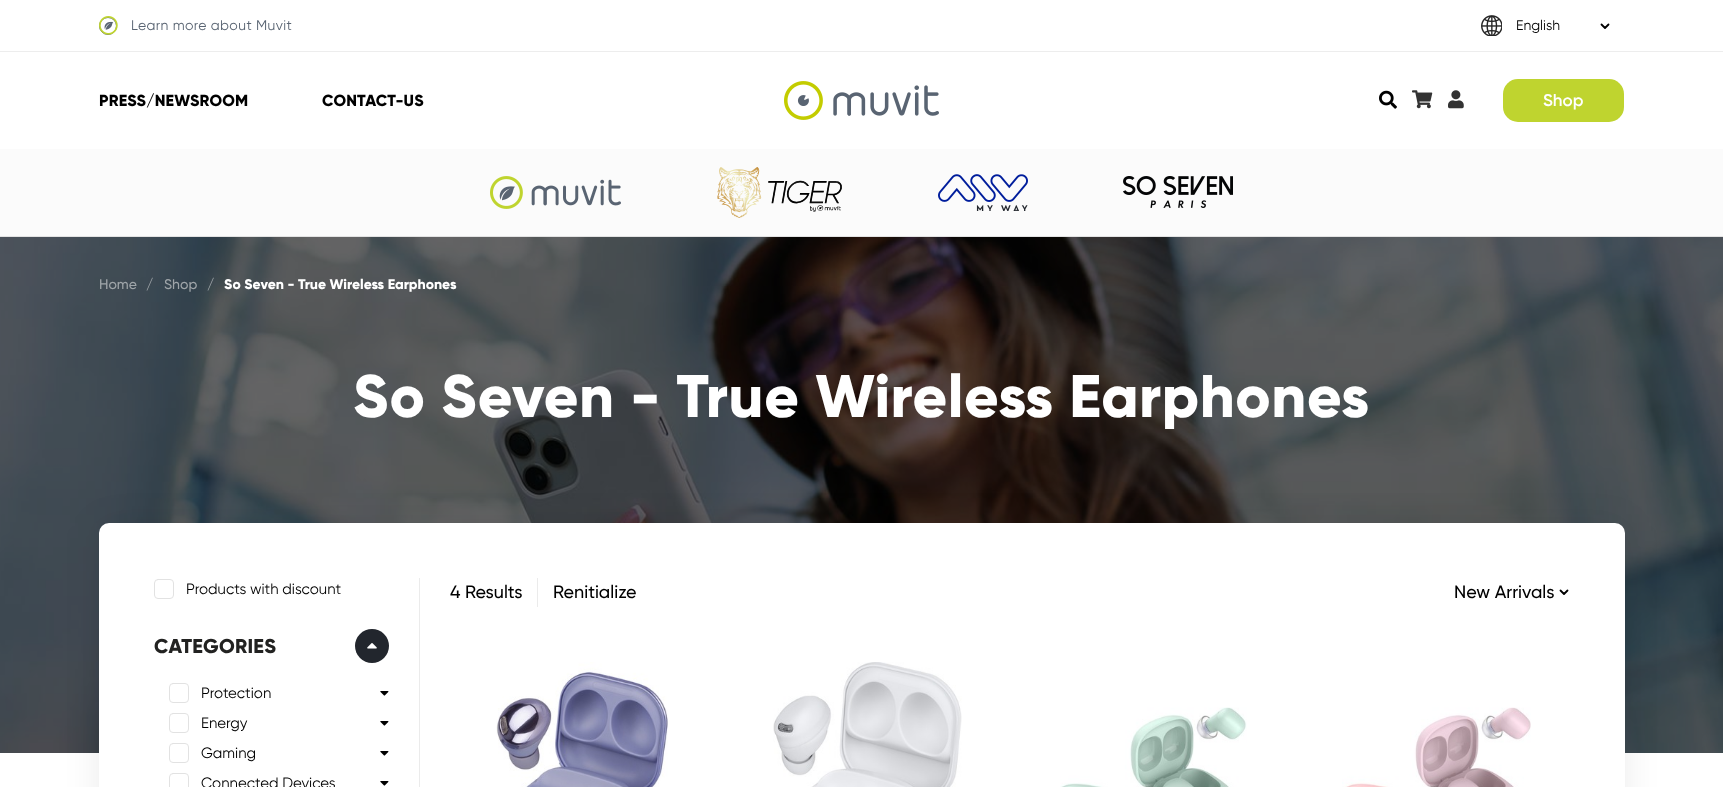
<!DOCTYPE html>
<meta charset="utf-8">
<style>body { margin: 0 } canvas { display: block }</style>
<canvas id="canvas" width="1723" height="787"></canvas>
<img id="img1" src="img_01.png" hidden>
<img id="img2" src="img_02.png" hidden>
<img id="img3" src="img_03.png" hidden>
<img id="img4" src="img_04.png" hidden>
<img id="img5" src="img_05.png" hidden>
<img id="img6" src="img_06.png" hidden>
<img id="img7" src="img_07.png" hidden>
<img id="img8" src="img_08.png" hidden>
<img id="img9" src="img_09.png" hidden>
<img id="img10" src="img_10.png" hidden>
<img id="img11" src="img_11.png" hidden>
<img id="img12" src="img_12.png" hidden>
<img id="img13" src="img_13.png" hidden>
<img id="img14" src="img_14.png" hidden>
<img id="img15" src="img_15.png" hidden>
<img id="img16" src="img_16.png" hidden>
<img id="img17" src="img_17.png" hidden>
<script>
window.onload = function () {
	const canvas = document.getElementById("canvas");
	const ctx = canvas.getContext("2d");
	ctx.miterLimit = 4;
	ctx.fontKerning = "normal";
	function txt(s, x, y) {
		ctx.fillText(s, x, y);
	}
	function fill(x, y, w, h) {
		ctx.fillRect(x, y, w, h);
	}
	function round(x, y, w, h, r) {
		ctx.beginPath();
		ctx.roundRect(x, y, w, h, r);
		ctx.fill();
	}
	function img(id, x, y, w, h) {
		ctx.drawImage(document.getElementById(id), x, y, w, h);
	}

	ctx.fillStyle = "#FFFFFF";
	fill(0, 0, 1723, 787);
	ctx.beginPath();
	ctx.arc(108, 26, 8.5, 0, Math.PI * 2);
	ctx.strokeStyle = "#596472";
	ctx.stroke();
	img("img1", 99, 16, 19, 19);
	img("img2", 1481, 15, 21, 21);
	ctx.beginPath();
	ctx.moveTo(1601.5, 24.5);
	ctx.lineTo(1605, 28);
	ctx.lineTo(1608.5, 24.5);
	ctx.strokeStyle = "#000000";
	ctx.lineWidth = 1.8;
	ctx.lineCap = "round";
	ctx.lineJoin = "round";
	ctx.stroke();
	ctx.fillStyle = "#EDEDED";
	fill(0, 51, 1723, 1);
	img("img3", 784, 81, 155, 39);
	img("img4", 1379, 90, 18, 19);
	img("img5", 1412, 90, 21, 19);
	img("img6", 1448, 90, 16, 19);
	ctx.fillStyle = "#BFD42F";
	round(1503, 79, 121, 43, 15);
	ctx.fillStyle = "#FBFBFB";
	fill(0, 149, 1723, 87);
	ctx.fillStyle = "#E3E3E3";
	fill(0, 236, 1723, 1);
	img("img7", 490, 176, 131, 33);
	img("img8", 717, 167, 125, 51);
	img("img9", 938, 174, 90, 37);
	img("img10", 1123, 176, 110, 32);
	img("img11", 0, 237, 1723, 516);
	ctx.fillStyle = "rgba(0, 0, 0, 0.08)";
	ctx.filter = "blur(17.5px)";
	ctx.beginPath();
	ctx.roundRect(99, 525, 1526, 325, 10);
	ctx.fill();
	ctx.filter = "none";
	ctx.fillStyle = "#FFFFFF";
	round(99, 523, 1526, 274, 10);
	ctx.beginPath();
	ctx.roundRect(154.5, 579.5, 19, 19, 3.5);
	ctx.strokeStyle = "#E2E2E2";
	ctx.lineWidth = 1;
	ctx.lineJoin = "miter";
	ctx.stroke();
	ctx.fillStyle = "#22262D";
	ctx.beginPath();
	ctx.arc(372, 646, 17, 0, Math.PI * 2);
	ctx.fill();
	img("img12", 367, 643, 10, 6);
	ctx.beginPath();
	ctx.roundRect(169.5, 683.5, 19, 19, 3.5);
	ctx.stroke();
	img("img13", 380, 691, 9, 5);
	ctx.beginPath();
	ctx.roundRect(169.5, 713.5, 19, 19, 3.5);
	ctx.stroke();
	img("img13", 380, 721, 9, 5);
	ctx.beginPath();
	ctx.roundRect(169.5, 743.5, 19, 19, 3.5);
	ctx.stroke();
	img("img13", 380, 751, 9, 5);
	ctx.beginPath();
	ctx.roundRect(169.5, 773.5, 19, 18, 3.5);
	ctx.stroke();
	img("img13", 380, 781, 9, 5);
	ctx.fillStyle = "#EBEBEB";
	fill(419, 578, 1, 209);
	fill(537, 578, 1, 29);
	ctx.beginPath();
	ctx.moveTo(1560.5, 590.5);
	ctx.lineTo(1564, 594);
	ctx.lineTo(1567.5, 590.5);
	ctx.strokeStyle = "#000000";
	ctx.lineWidth = 1.8;
	ctx.lineJoin = "round";
	ctx.stroke();
	img("img14", 496, 662, 172, 125);
	img("img15", 773, 662, 189, 125);
	img("img16", 1060, 707, 187, 80);
	img("img17", 1342, 707, 189, 80);
	ctx.letterSpacing = "0.4px";
	ctx.font = "14px Gilroy";
	ctx.fillStyle = "#596472";
	txt("Learn more about Muvit", 131, 30);
	ctx.letterSpacing = "0px";
	ctx.fillStyle = "#000000";
	txt("English", 1516, 30);
	ctx.letterSpacing = "0.2px";
	ctx.font = "800 16px Gilroy";
	txt("PRESS/NEWSROOM", 99, 106);
	txt("CONTACT-US", 322, 106);
	ctx.letterSpacing = "0px";
	ctx.font = "600 17px Gilroy";
	ctx.fillStyle = "#FFFFFF";
	txt("Shop", 1543, 106);
	ctx.font = "500 14px Gilroy";
	ctx.fillStyle = "#9FA5A9";
	txt("Home", 99, 289);
	txt("/", 146, 289);
	txt("Shop", 164, 289);
	txt("/", 207, 289);
	ctx.font = "800 14px Gilroy";
	ctx.fillStyle = "#FFFFFF";
	txt("So Seven - True Wireless Earphones", 224, 289);
	ctx.letterSpacing = "0.6px";
	ctx.font = "800 60px Gilroy";
	txt("So Seven - True Wireless Earphones", 353, 417);
	ctx.letterSpacing = "0px";
	ctx.font = "15px Gilroy";
	ctx.fillStyle = "#000000";
	txt("Products with discount", 186, 594);
	ctx.letterSpacing = "0.25px";
	ctx.font = "800 20px Gilroy";
	ctx.fillStyle = "#222221";
	txt("CATEGORIES", 154, 653);
	ctx.letterSpacing = "0px";
	ctx.font = "15px Gilroy";
	ctx.fillStyle = "#000000";
	txt("Protection", 201, 698);
	txt("Energy", 201, 728);
	txt("Gaming", 201, 758);
	txt("Connected Devices", 201, 788);
	ctx.font = "500 18px Gilroy";
	txt("4 Results", 450, 598);
	txt("Renitialize", 553, 598);
	txt("New Arrivals", 1454, 598);
};
</script>
